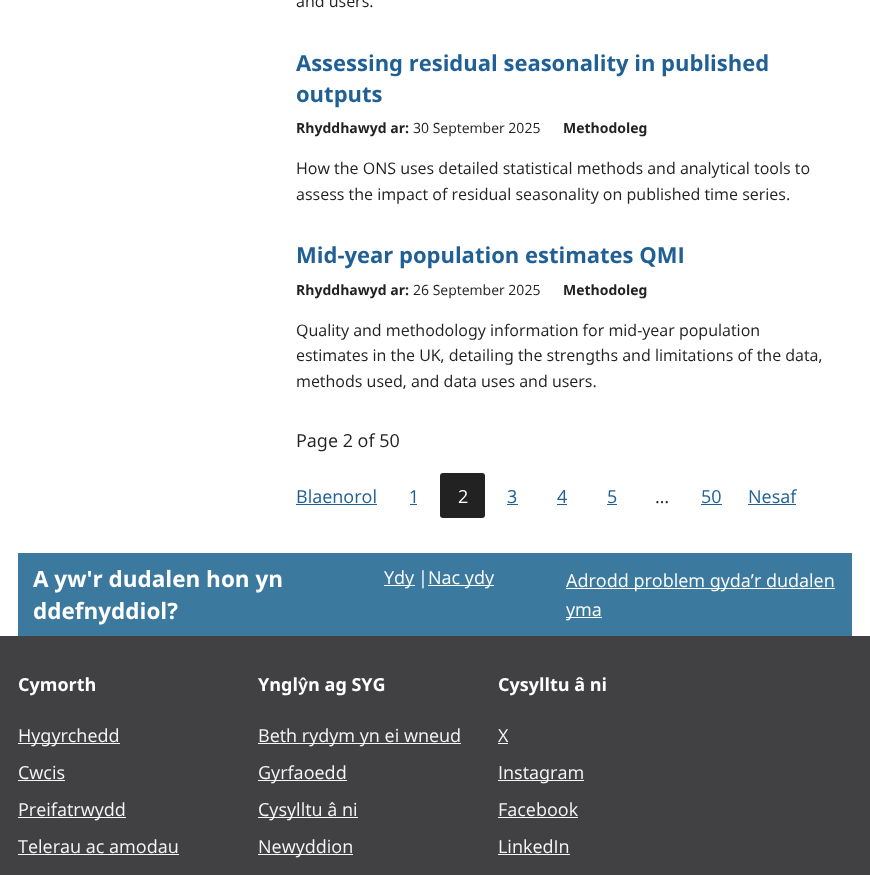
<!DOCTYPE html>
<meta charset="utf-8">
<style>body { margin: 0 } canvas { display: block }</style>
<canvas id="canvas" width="870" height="875"></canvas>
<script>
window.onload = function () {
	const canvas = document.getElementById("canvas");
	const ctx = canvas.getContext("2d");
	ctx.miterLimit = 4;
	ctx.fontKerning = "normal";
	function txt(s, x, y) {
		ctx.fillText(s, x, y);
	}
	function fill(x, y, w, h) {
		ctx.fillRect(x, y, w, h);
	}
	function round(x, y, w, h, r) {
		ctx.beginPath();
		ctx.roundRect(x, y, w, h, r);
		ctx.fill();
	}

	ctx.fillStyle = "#FFFFFF";
	fill(0, 0, 870, 875);
	ctx.fillStyle = "#206095";
	fill(296, 504, 81, 1);
	fill(410, 504, 7, 1);
	ctx.fillStyle = "#222222";
	round(440, 473, 45, 45, 3);
	ctx.fillStyle = "#206095";
	fill(507, 504, 11, 1);
	fill(557, 504, 10, 1);
	fill(607, 504, 10, 1);
	fill(701, 504, 21, 1);
	fill(748, 504, 48, 1);
	ctx.fillStyle = "#3B7A9E";
	fill(18, 553, 834, 83);
	ctx.fillStyle = "#FFFFFF";
	fill(384, 585, 31, 1);
	fill(428, 585, 66, 1);
	fill(566, 588, 269, 1);
	fill(566, 617, 36, 1);
	ctx.fillStyle = "#414042";
	fill(0, 636, 870, 239);
	ctx.fillStyle = "#F5F5F6";
	fill(18, 743, 102, 1);
	fill(18, 780, 47, 1);
	fill(18, 817, 108, 1);
	fill(18, 854, 161, 1);
	fill(258, 743, 203, 1);
	fill(258, 780, 89, 1);
	fill(258, 817, 100, 1);
	fill(258, 854, 95, 1);
	fill(498, 743, 10, 1);
	fill(498, 780, 86, 1);
	fill(498, 817, 80, 1);
	fill(498, 854, 72, 1);
	ctx.font = "16px Open Sans";
	ctx.fillStyle = "#222222";
	txt("and users.", 296, 7);
	ctx.font = "bold 22px Open Sans";
	ctx.fillStyle = "#206095";
	txt("Assessing residual seasonality in published", 296, 71);
	txt("outputs", 296, 102);
	ctx.font = "bold 14px Open Sans";
	ctx.fillStyle = "#222222";
	txt("Rhyddhawyd ar:", 296, 133);
	ctx.font = "14px Open Sans";
	txt("30 September 2025", 413, 133);
	ctx.font = "bold 14px Open Sans";
	txt("Methodoleg", 563, 133);
	ctx.font = "16px Open Sans";
	txt("How the ONS uses detailed statistical methods and analytical tools to", 296, 174);
	txt("assess the impact of residual seasonality on published time series.", 296, 200);
	ctx.font = "bold 22px Open Sans";
	ctx.fillStyle = "#206095";
	txt("Mid-year population estimates QMI", 296, 263);
	ctx.font = "bold 14px Open Sans";
	ctx.fillStyle = "#222222";
	txt("Rhyddhawyd ar:", 296, 295);
	ctx.font = "14px Open Sans";
	txt("26 September 2025", 413, 295);
	ctx.font = "bold 14px Open Sans";
	txt("Methodoleg", 563, 295);
	ctx.font = "16px Open Sans";
	txt("Quality and methodology information for mid-year population", 296, 336);
	txt("estimates in the UK, detailing the strengths and limitations of the data,", 296, 361);
	txt("methods used, and data uses and users.", 296, 387);
	ctx.font = "18px Open Sans";
	txt("Page 2 of 50", 296, 447);
	ctx.fillStyle = "#206095";
	txt("Blaenorol", 296, 503);
	txt("1", 410, 503);
	ctx.fillStyle = "#FFFFFF";
	txt("2", 458, 503);
	ctx.fillStyle = "#206095";
	txt("3", 507, 503);
	txt("4", 557, 503);
	txt("5", 607, 503);
	ctx.fillStyle = "#222222";
	txt("…", 655, 503);
	ctx.fillStyle = "#206095";
	txt("50", 701, 503);
	txt("Nesaf", 748, 503);
	ctx.font = "bold 22.5px Open Sans";
	ctx.fillStyle = "#FFFFFF";
	txt("A yw'r dudalen hon yn", 33, 587);
	txt("ddefnyddiol?", 33, 619);
	ctx.font = "18px Open Sans";
	txt("Ydy", 384, 584);
	txt("|", 418, 584);
	txt("Nac ydy", 428, 584);
	txt("Adrodd problem gyda’r dudalen", 566, 587);
	txt("yma", 566, 616);
	ctx.font = "bold 18px Open Sans";
	txt("Cymorth", 18, 691);
	ctx.font = "18px Open Sans";
	ctx.fillStyle = "#F5F5F6";
	txt("Hygyrchedd", 18, 742);
	txt("Cwcis", 18, 779);
	txt("Preifatrwydd", 18, 816);
	txt("Telerau ac amodau", 18, 853);
	ctx.font = "bold 18px Open Sans";
	ctx.fillStyle = "#FFFFFF";
	txt("Yngl", 258, 691);
	ctx.font = "bold 18px Liberation Sans";
	txt("ŷ", 298, 691);
	ctx.font = "bold 18px Open Sans";
	txt("n ag SYG", 308, 691);
	ctx.font = "18px Open Sans";
	ctx.fillStyle = "#F5F5F6";
	txt("Beth rydym yn ei wneud", 258, 742);
	txt("Gyrfaoedd", 258, 779);
	txt("Cysylltu â ni", 258, 816);
	txt("Newyddion", 258, 853);
	ctx.font = "bold 18px Open Sans";
	ctx.fillStyle = "#FFFFFF";
	txt("Cysylltu â ni", 498, 691);
	ctx.font = "18px Open Sans";
	ctx.fillStyle = "#F5F5F6";
	txt("X", 498, 742);
	txt("Instagram", 498, 779);
	txt("Facebook", 498, 816);
	txt("LinkedIn", 498, 853);
};
</script>
